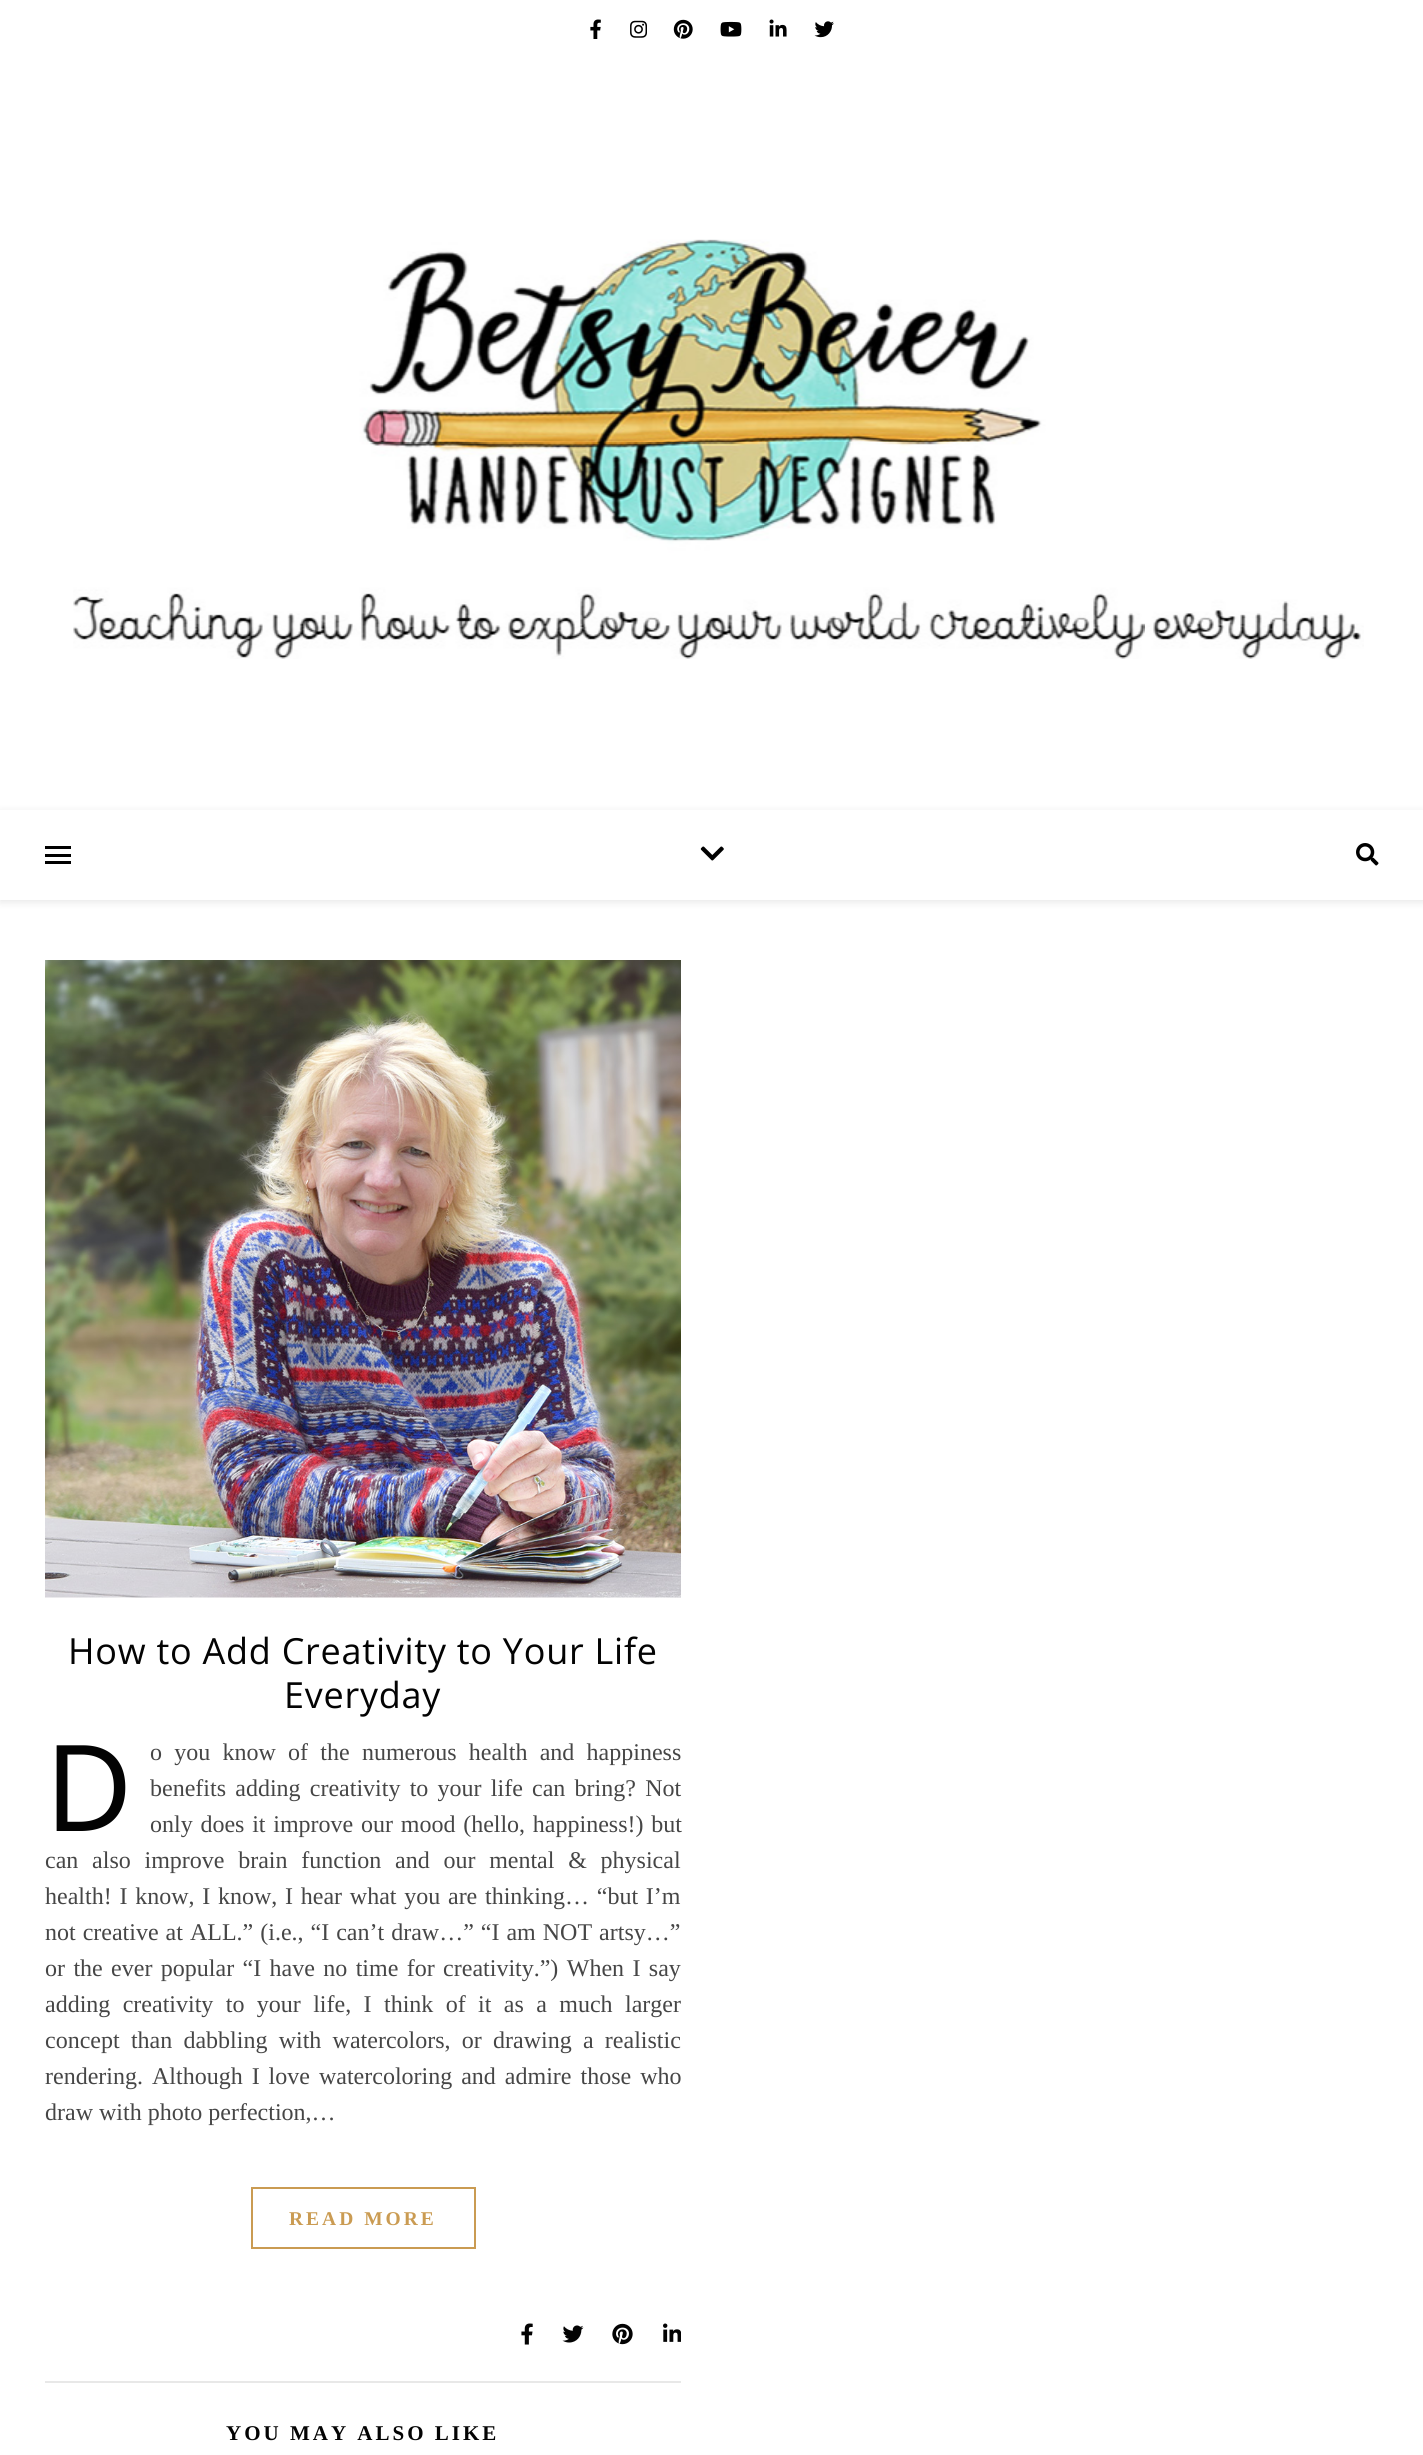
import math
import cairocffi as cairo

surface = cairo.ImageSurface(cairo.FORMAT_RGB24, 1423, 2455)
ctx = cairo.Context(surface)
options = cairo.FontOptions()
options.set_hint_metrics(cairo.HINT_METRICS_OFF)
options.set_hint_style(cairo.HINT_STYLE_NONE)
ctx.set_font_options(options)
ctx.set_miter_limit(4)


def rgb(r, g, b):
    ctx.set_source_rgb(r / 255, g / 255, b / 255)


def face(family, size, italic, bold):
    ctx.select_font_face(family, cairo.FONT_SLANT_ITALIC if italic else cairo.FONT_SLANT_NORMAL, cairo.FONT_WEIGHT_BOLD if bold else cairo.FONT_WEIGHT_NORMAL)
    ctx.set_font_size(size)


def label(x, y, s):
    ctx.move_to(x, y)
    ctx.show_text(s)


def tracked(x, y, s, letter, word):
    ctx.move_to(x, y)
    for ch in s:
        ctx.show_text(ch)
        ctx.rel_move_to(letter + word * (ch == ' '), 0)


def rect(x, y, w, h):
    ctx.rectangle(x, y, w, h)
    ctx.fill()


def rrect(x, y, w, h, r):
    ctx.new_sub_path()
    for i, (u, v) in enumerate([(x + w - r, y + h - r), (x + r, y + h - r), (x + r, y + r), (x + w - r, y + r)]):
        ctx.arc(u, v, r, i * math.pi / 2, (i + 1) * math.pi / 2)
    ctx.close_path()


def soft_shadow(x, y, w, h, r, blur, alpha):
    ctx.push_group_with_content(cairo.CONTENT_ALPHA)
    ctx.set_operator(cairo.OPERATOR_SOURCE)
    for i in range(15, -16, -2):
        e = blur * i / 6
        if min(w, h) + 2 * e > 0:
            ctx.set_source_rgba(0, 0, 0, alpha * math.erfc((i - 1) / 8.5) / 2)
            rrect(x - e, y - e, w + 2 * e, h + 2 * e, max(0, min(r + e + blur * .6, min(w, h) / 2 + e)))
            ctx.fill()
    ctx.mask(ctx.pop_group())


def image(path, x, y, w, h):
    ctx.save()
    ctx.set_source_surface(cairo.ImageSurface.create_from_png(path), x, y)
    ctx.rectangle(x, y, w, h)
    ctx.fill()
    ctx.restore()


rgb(255, 255, 255)
ctx.paint()
image('image0.png', 590, 19, 11, 20)
image('image1.png', 630, 20, 17, 18)
image('image2.png', 673, 19, 20, 20)
image('image3.png', 720, 21, 22, 16)
image('image4.png', 769, 19, 18, 18)
image('image5.png', 814, 21, 20, 17)
image('image6.png', 73, 239, 1291, 420)
ctx.save()
ctx.set_fill_rule(cairo.FILL_RULE_EVEN_ODD)
ctx.new_path()
ctx.move_to(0, 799)
ctx.line_to(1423, 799)
ctx.line_to(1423, 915)
ctx.line_to(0, 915)
ctx.close_path()
ctx.move_to(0, 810)
ctx.line_to(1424, 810)
ctx.line_to(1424, 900)
ctx.line_to(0, 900)
ctx.close_path()
ctx.clip()
rgb(0, 0, 0)
soft_shadow(0, 812, 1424, 90, 0, 4, 0.1)
ctx.restore()
rgb(0, 0, 0)
rect(45, 846, 26, 3)
rect(45, 854, 26, 3)
rect(45, 861, 26, 3)
image('image7.png', 700, 846, 24, 15)
image('image8.png', 1356, 843, 23, 23)
image('image9.png', 45, 960, 636, 638)
face('Open Sans', 36, 0, 0)
rgb(3, 3, 3)
tracked(68, 1664, 'How to Add Creativity to Your Life', 0.75, 0)
tracked(284, 1708, 'Everyday', 0.75, 0)
face('Noto Sans', 120, 0, 0)
label(45, 1831, 'D')
face('Liberation Serif', 24, 0, 0)
rgb(70, 70, 70)
tracked(150, 1760, 'o you know of the numerous health and happiness', 0, 6.25)
tracked(150, 1796, 'benefits adding creativity to your life can bring? Not', 0, 3.25)
tracked(150, 1832, 'only does it improve our mood (hello, happiness!) but', 0, 1.75)
tracked(45, 1868, 'can also improve brain function and our mental & physical', 0, 7.75)
tracked(45, 1904, 'health! I know, I know, I hear what you are thinking… “but I’m', 0, 1.75)
tracked(45, 1940, 'not creative at ALL.” (i.e., “I can’t draw…” “I am NOT artsy…”', 0, 1)
tracked(45, 1976, 'or the ever popular “I have no time for creativity.”) When I say', 0, 2.4)
tracked(45, 2012, 'adding creativity to your life, I think of it as a much larger', 0, 6.4)
tracked(45, 2048, 'concept than dabbling with watercolors, or drawing a realistic', 0, 5.25)
tracked(45, 2084, 'rendering. Although I love watercoloring and admire those who', 0, 3)
label(45, 2120, 'draw with photo perfection,…')
ctx.rectangle(252, 2188, 223, 60)
rgb(202, 155, 82)
ctx.stroke()
face('Liberation Serif', 19.5, 0, 1)
tracked(289, 2225, 'READ MORE', 3, 0)
rgb(232, 232, 232)
rect(45, 2381, 636, 2)
image('image10.png', 521, 2323, 12, 22)
image('image11.png', 562, 2325, 22, 18)
image('image12.png', 612, 2323, 21, 22)
image('image13.png', 663, 2323, 18, 19)
face('Liberation Serif', 21, 0, 1)
rgb(3, 3, 3)
tracked(226, 2440, 'YOU MAY ALSO LIKE', 3, 0)
surface.write_to_png('render.png')
